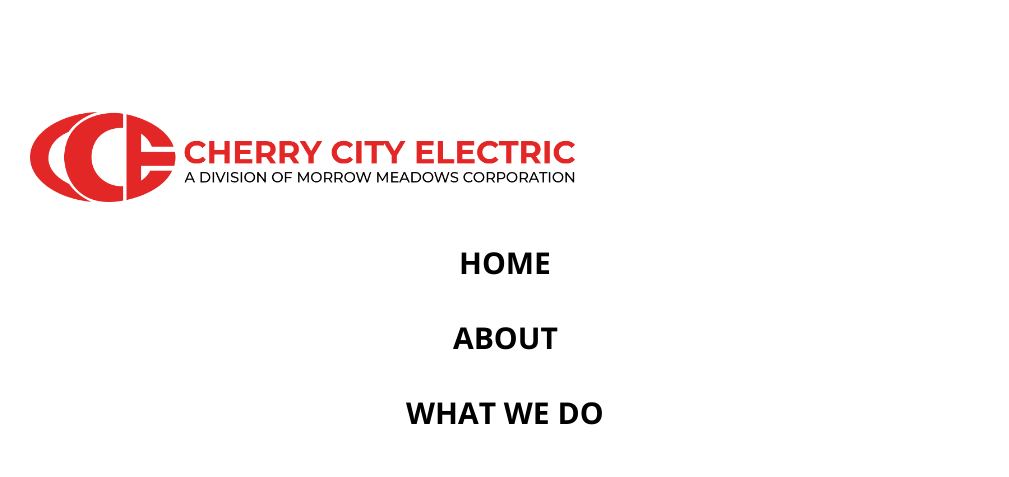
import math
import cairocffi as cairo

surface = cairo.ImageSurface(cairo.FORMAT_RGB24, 1009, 477)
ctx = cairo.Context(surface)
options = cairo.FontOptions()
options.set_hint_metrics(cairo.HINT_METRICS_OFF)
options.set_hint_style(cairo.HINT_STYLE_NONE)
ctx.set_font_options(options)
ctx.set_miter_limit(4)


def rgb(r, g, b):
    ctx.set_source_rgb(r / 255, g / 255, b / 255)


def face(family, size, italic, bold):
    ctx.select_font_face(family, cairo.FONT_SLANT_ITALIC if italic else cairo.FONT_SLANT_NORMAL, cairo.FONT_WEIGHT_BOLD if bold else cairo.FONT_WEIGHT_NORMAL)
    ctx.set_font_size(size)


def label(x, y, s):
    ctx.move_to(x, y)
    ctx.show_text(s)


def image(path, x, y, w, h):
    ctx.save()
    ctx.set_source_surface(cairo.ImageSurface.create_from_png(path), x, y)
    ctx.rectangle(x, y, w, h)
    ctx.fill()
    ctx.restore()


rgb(255, 255, 255)
ctx.paint()
image('image0.png', 30, 112, 545, 90)
face('Open Sans', 30, 0, 1)
rgb(0, 0, 0)
label(459, 274, 'HOME')
label(453, 349, 'ABOUT')
label(406, 424, 'WHAT WE DO')
surface.write_to_png('render.png')
